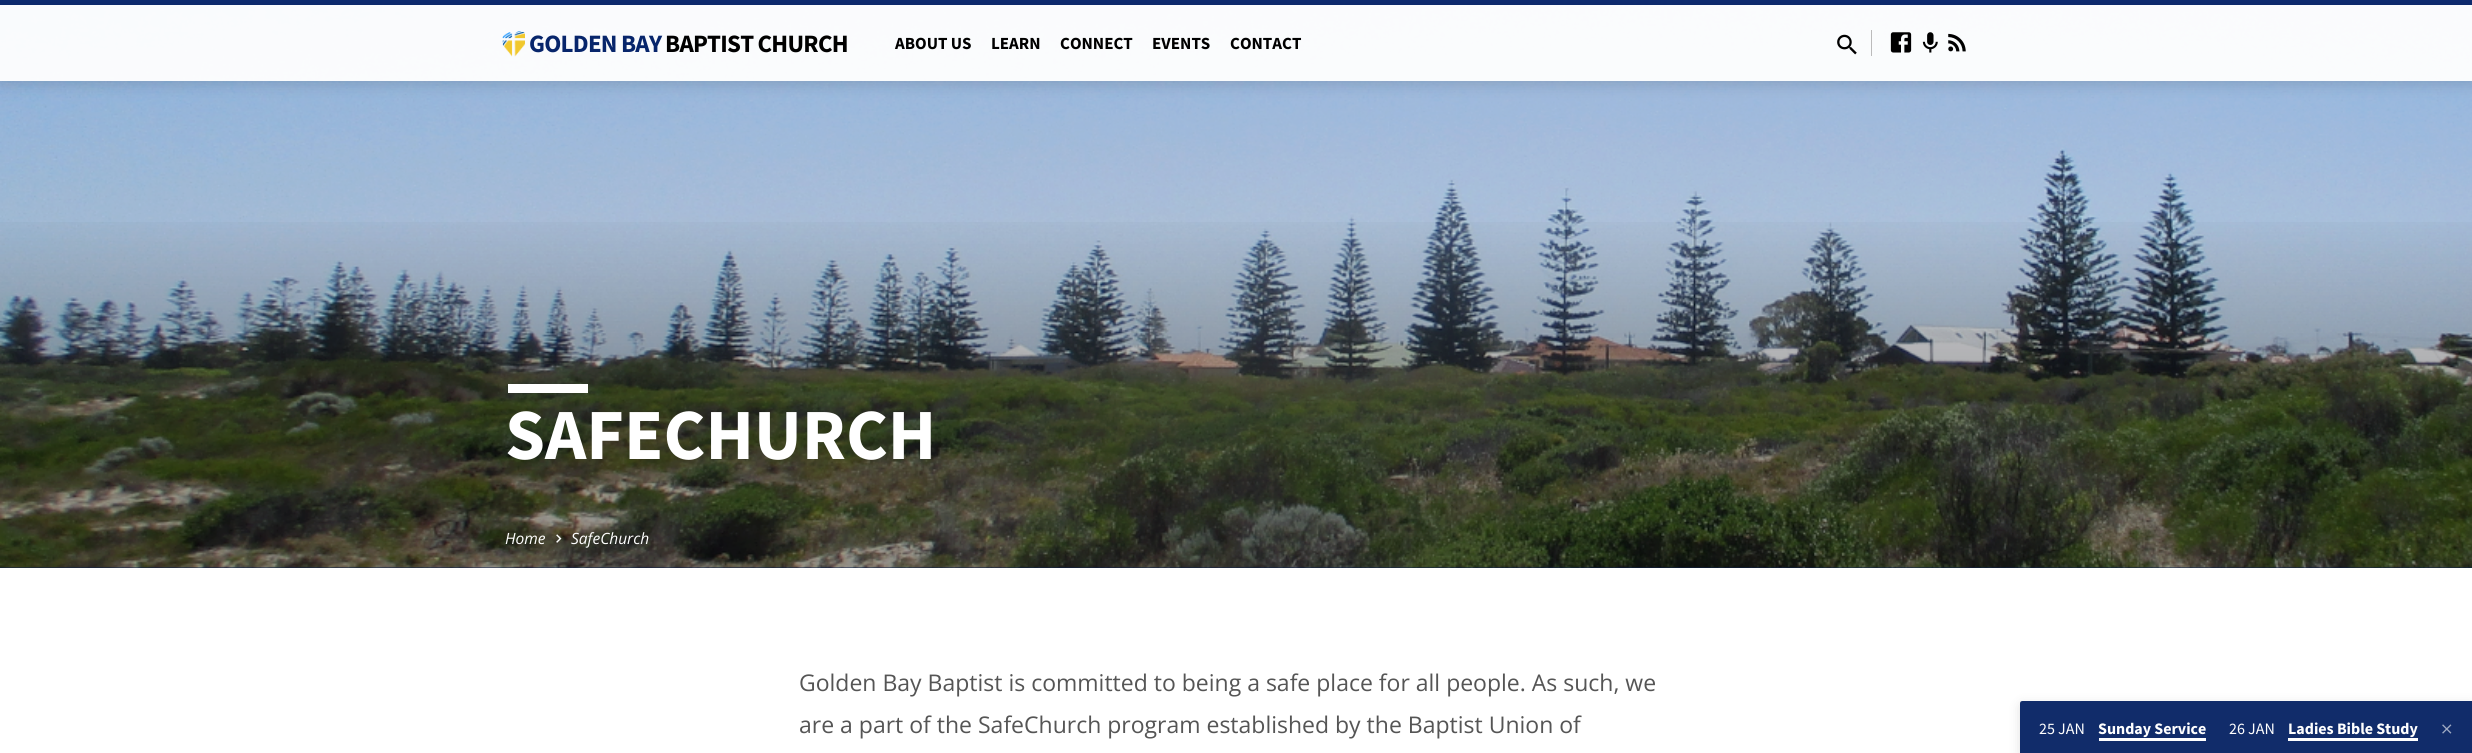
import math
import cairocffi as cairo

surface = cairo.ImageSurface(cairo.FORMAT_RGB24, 2472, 753)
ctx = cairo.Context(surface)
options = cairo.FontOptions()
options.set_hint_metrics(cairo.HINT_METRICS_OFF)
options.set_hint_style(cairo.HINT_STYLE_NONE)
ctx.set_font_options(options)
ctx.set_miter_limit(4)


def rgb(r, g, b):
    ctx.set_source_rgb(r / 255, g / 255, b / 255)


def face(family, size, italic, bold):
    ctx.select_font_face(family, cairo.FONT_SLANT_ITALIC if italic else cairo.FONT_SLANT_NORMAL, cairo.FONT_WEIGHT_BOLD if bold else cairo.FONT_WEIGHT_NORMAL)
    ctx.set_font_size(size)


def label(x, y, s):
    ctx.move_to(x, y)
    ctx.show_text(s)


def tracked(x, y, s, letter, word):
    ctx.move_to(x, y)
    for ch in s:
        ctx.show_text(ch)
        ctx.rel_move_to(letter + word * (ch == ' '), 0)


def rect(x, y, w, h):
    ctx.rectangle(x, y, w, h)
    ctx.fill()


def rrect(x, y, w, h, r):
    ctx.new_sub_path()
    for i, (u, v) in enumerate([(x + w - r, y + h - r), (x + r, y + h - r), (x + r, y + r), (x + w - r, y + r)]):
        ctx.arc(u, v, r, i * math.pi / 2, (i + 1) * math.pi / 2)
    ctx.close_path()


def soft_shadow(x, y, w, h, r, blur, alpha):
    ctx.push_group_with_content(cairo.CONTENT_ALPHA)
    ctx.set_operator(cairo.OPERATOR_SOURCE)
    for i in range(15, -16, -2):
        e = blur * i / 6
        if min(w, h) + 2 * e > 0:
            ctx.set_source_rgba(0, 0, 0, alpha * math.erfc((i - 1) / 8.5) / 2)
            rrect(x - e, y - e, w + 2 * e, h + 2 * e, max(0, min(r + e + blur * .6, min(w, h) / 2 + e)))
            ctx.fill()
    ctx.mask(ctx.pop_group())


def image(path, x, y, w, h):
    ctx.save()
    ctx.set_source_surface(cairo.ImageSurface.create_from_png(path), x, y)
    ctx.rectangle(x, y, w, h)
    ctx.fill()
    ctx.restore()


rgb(255, 255, 255)
ctx.paint()
rgb(17, 43, 103)
rect(0, 0, 2472, 568)
image('image5.png', 0, 0, 2472, 568)
ctx.set_source_rgba(0.027, 0.145, 0.42, 0.95)
rect(0, 0, 2472, 5)
ctx.save()
ctx.set_fill_rule(cairo.FILL_RULE_EVEN_ODD)
ctx.new_path()
ctx.move_to(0, 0)
ctx.line_to(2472, 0)
ctx.line_to(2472, 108)
ctx.line_to(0, 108)
ctx.close_path()
ctx.move_to(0, 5)
ctx.line_to(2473, 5)
ctx.line_to(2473, 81)
ctx.line_to(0, 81)
ctx.close_path()
ctx.clip()
rgb(0, 0, 0)
soft_shadow(0, 8, 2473, 76, 0, 7.5, 0.14)
ctx.restore()
ctx.set_source_rgba(1, 1, 1, 0.95)
rect(0, 5, 2472, 76)
image('image0.png', 502, 31, 23, 26)
face('Source Sans Pro', 25, 0, 1)
rgb(7, 37, 107)
tracked(529, 52, 'GOLDEN BAY', -0.75, 0)
rgb(0, 0, 0)
tracked(665, 52, 'BAPTIST CHURCH', -0.75, 0)
face('Source Sans Pro', 17, 0, 1)
label(895, 49, 'ABOUT US')
label(991, 49, 'LEARN')
label(1060, 49, 'CONNECT')
label(1152, 49, 'EVENTS')
label(1230, 49, 'CONTACT')
image('image1.png', 1837, 34, 20, 21)
rgb(187, 187, 187)
rect(1871, 30, 1, 26)
image('image2.png', 1890, 32, 22, 21)
image('image3.png', 1922, 32, 16, 21)
image('image4.png', 1948, 33, 18, 19)
gradient = cairo.LinearGradient(1236, 0, 1236, 568)
gradient.add_color_stop_rgba(0, 0, 0, 0, 0)
gradient.add_color_stop_rgba(0.36, 0, 0, 0, 0)
gradient.add_color_stop_rgba(0.76, 0, 0, 0, 0.28)
gradient.add_color_stop_rgba(1, 0, 0, 0, 0.28)
ctx.set_source(gradient)
rect(0, 222, 2472, 346)
rgb(255, 255, 255)
rect(508, 384, 80, 9)
face('Source Sans Pro', 72, 0, 1)
label(505, 459, 'SAFECHURCH')
face('Open Sans', 15.5, 1, 0)
label(505, 544, 'Home')
image('image6.png', 556, 534, 6, 9)
label(571, 544, 'SafeChurch')
face('Open Sans', 23, 0, 0)
rgb(85, 85, 85)
label(799, 691, 'Golden Bay Baptist is committed to being a safe place for all people. As such, we')
label(799, 733, 'are a part of the SafeChurch program established by the Baptist Union of')
ctx.save()
ctx.set_fill_rule(cairo.FILL_RULE_EVEN_ODD)
ctx.new_path()
ctx.move_to(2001, 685)
ctx.line_to(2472, 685)
ctx.line_to(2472, 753)
ctx.line_to(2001, 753)
ctx.close_path()
ctx.move_to(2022.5, 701)
ctx.line_to(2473, 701)
ctx.line_to(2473, 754)
ctx.line_to(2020, 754)
ctx.line_to(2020, 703.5)
ctx.curve_to(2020, 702, 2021, 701, 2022.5, 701)
ctx.close_path()
ctx.clip()
rgb(0, 0, 0)
soft_shadow(2020, 704, 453, 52, 2.5, 6, 0.12)
ctx.restore()
ctx.set_source_rgba(0.027, 0.145, 0.42, 0.95)
ctx.new_path()
ctx.move_to(2022.5, 701)
ctx.line_to(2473, 701)
ctx.line_to(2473, 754)
ctx.line_to(2020, 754)
ctx.line_to(2020, 703.5)
ctx.curve_to(2020, 702, 2021, 701, 2022.5, 701)
ctx.close_path()
ctx.fill()
ctx.set_source_rgba(0, 0, 0, 0.07)
rect(2020, 701, 452, 52)
face('Source Sans Pro', 16, 0, 0)
rgb(255, 255, 255)
label(2039, 734, '25 JAN')
face('Source Sans Pro', 16, 0, 1)
label(2098, 734, 'Sunday Service')
rect(2099, 738, 107, 3)
face('Source Sans Pro', 16, 0, 0)
label(2229, 734, '26 JAN')
face('Source Sans Pro', 16, 0, 1)
label(2288, 734, 'Ladies Bible Study')
rect(2288, 738, 130, 3)
image('image7.png', 2442, 724, 10, 10)
surface.write_to_png('render.png')
